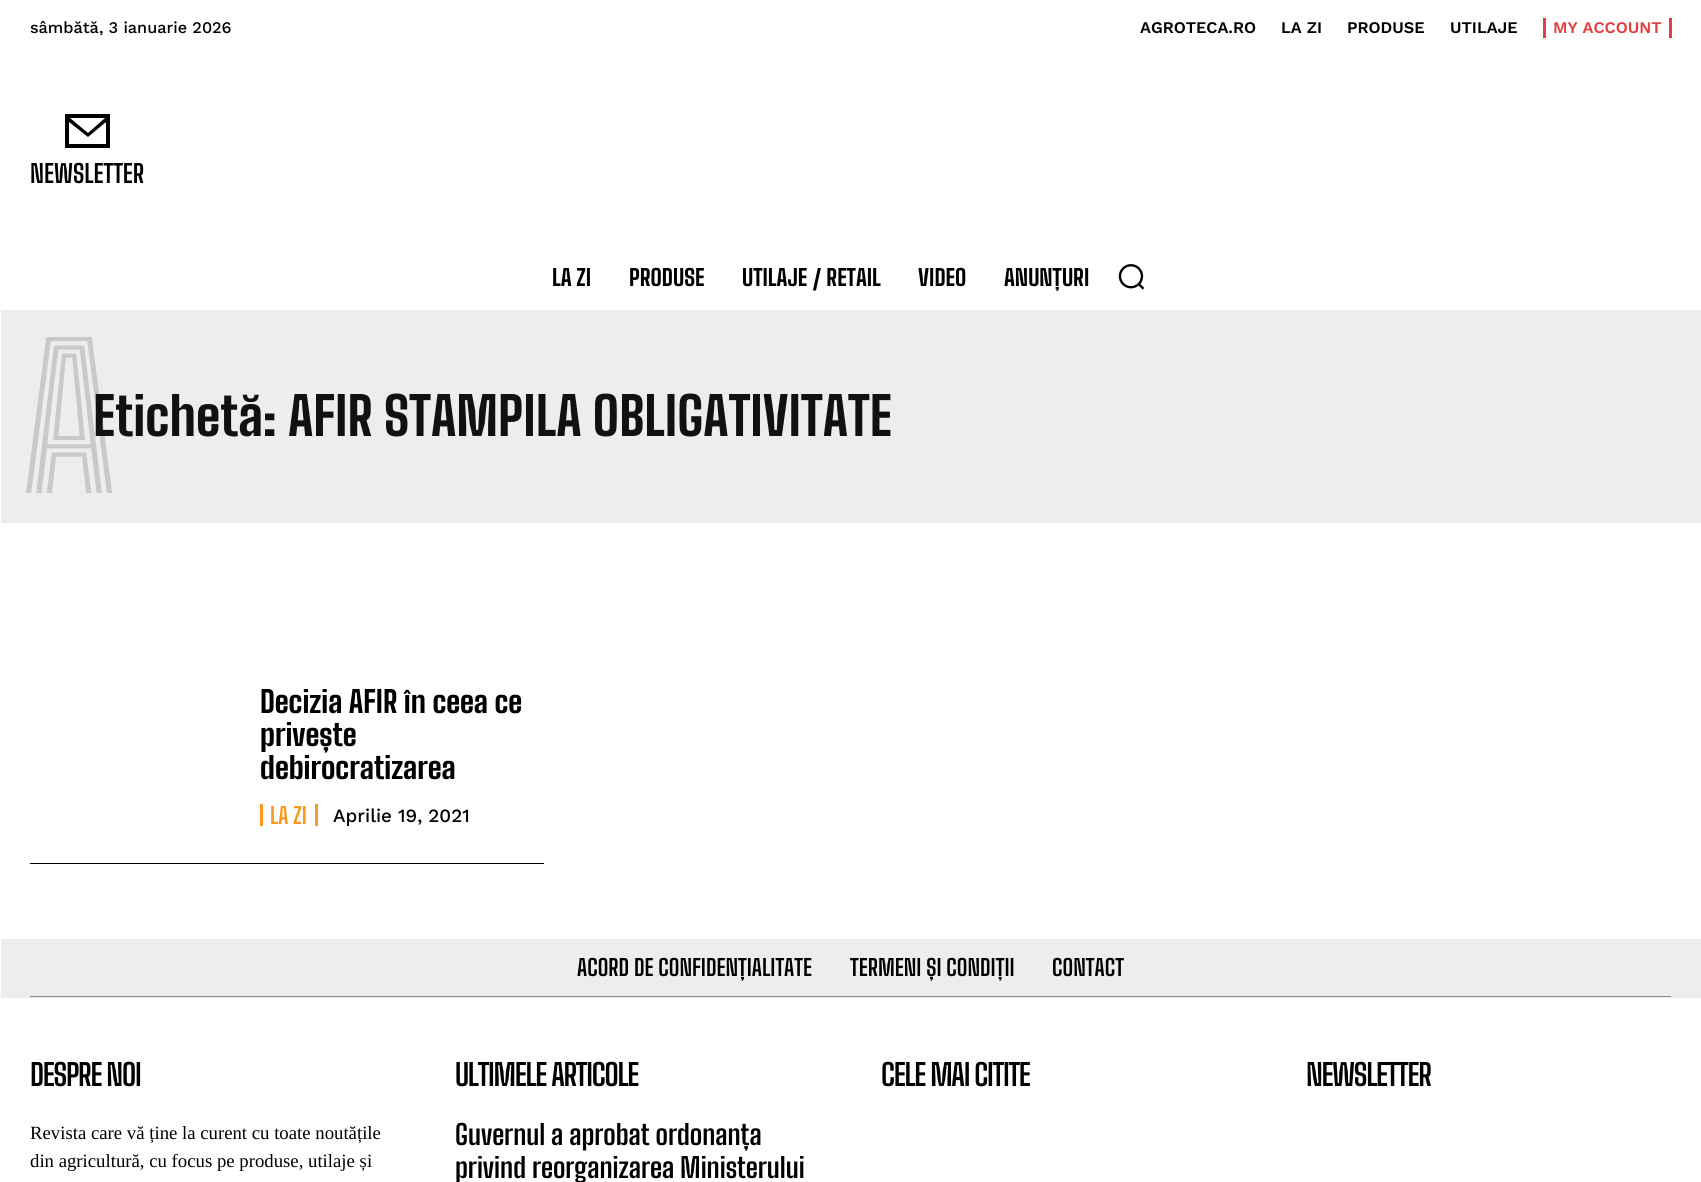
import math
import cairocffi as cairo

surface = cairo.ImageSurface(cairo.FORMAT_RGB24, 1701, 1182)
ctx = cairo.Context(surface)
options = cairo.FontOptions()
options.set_hint_metrics(cairo.HINT_METRICS_OFF)
options.set_hint_style(cairo.HINT_STYLE_NONE)
ctx.set_font_options(options)
ctx.set_miter_limit(4)


def rgb(r, g, b):
    ctx.set_source_rgb(r / 255, g / 255, b / 255)


def face(family, size, italic, bold):
    ctx.select_font_face(family, cairo.FONT_SLANT_ITALIC if italic else cairo.FONT_SLANT_NORMAL, cairo.FONT_WEIGHT_BOLD if bold else cairo.FONT_WEIGHT_NORMAL)
    ctx.set_font_size(size)


def label(x, y, s):
    ctx.move_to(x, y)
    ctx.show_text(s)


def tracked(x, y, s, letter, word):
    ctx.move_to(x, y)
    for ch in s:
        ctx.show_text(ch)
        ctx.rel_move_to(letter + word * (ch == ' '), 0)


def rect(x, y, w, h):
    ctx.rectangle(x, y, w, h)
    ctx.fill()


def image(path, x, y, w, h):
    ctx.save()
    ctx.set_source_surface(cairo.ImageSurface.create_from_png(path), x, y)
    ctx.rectangle(x, y, w, h)
    ctx.fill()
    ctx.restore()


rgb(255, 255, 255)
ctx.paint()
face('Work Sans Medium', 16.25, 0, 0)
rgb(0, 0, 0)
label(30, 33, 'sâmbătă, 3 ianuarie 2026')
face('Work Sans SemiBold', 16.25, 0, 0)
label(1140, 33, 'AGROTECA.RO')
label(1281, 33, 'LA ZI')
label(1347, 33, 'PRODUSE')
label(1450, 33, 'UTILAJE')
rgb(224, 64, 64)
rect(1669, 18, 3, 20)
rect(1543, 18, 3, 20)
label(1553, 33, 'MY ACCOUNT')
rgb(0, 0, 0)
ctx.new_path()
ctx.move_to(65, 114)
ctx.line_to(65, 148)
ctx.line_to(110, 148)
ctx.line_to(110, 114)
ctx.close_path()
ctx.move_to(105, 118)
ctx.line_to(88, 133)
ctx.line_to(70, 118)
ctx.close_path()
ctx.move_to(69, 144)
ctx.line_to(69, 122)
ctx.line_to(88, 137)
ctx.line_to(106, 122)
ctx.line_to(106, 144)
ctx.close_path()
ctx.fill()
face('Big Shoulders Text', 25, 0, 1)
label(30, 183, 'NEWSLETTER')
face('Big Shoulders Text ExtraBold', 22.5, 0, 0)
label(552, 286, 'LA ZI')
label(629, 286, 'PRODUSE')
label(742, 286, 'UTILAJE / RETAIL')
label(918, 286, 'VIDEO')
label(1004, 286, 'ANUNȚURI')
image('image0.png', 1118, 264, 27, 26)
rgb(237, 237, 237)
rect(1, 310, 1700, 213)
face('Big Shoulders Inline Text ExtraBold', 195, 0, 0)
rgb(201, 201, 201)
label(22, 493, 'A')
face('Big Shoulders Text ExtraBold', 52.5, 0, 0)
rgb(17, 17, 17)
label(93, 436, 'Etichetă: AFIR STAMPILA OBLIGATIVITATE')
rgb(0, 0, 0)
rect(30, 863, 514, 1)
face('Big Shoulders Text ExtraBold', 30, 0, 0)
label(260, 713, 'Decizia AFIR în ceea ce')
label(260, 746, 'privește')
label(260, 779, 'debirocratizarea')
rgb(248, 152, 29)
rect(315, 804, 3, 22)
rect(260, 804, 3, 22)
face('Big Shoulders Text', 22.5, 0, 1)
label(270, 824, 'LA ZI')
face('Work Sans Medium', 18.75, 0, 0)
rgb(0, 0, 0)
label(333, 822, 'Aprilie 19, 2021')
rgb(237, 237, 237)
rect(1, 939, 1700, 59)
rgb(136, 136, 136)
rect(30, 996, 1641, 1)
face('Big Shoulders Text', 22.5, 0, 1)
rgb(0, 0, 0)
label(577, 976, 'ACORD DE CONFIDENȚIALITATE')
label(850, 976, 'TERMENI ȘI CONDIȚII')
label(1052, 976, 'CONTACT')
face('Big Shoulders Text', 30, 0, 1)
tracked(30, 1086, 'DESPRE NOI', -1.25, 0)
face('Liberation Serif', 18.75, 0, 0)
label(30, 1139, 'Revista care vă ține la curent cu toate noutățile')
label(30, 1167, 'din agricultură, cu focus pe produse, utilaje și')
face('Big Shoulders Text', 30, 0, 1)
tracked(455, 1086, 'ULTIMELE ARTICOLE', -1.25, 0)
face('Big Shoulders Text', 27.5, 0, 1)
label(455, 1145, 'Guvernul a aprobat ordonanța')
label(455, 1178, 'privind reorganizarea Ministerului')
face('Big Shoulders Text', 30, 0, 1)
tracked(881, 1086, 'CELE MAI CITITE', -1.25, 0)
tracked(1306, 1086, 'NEWSLETTER', -1.25, 0)
surface.write_to_png('render.png')
